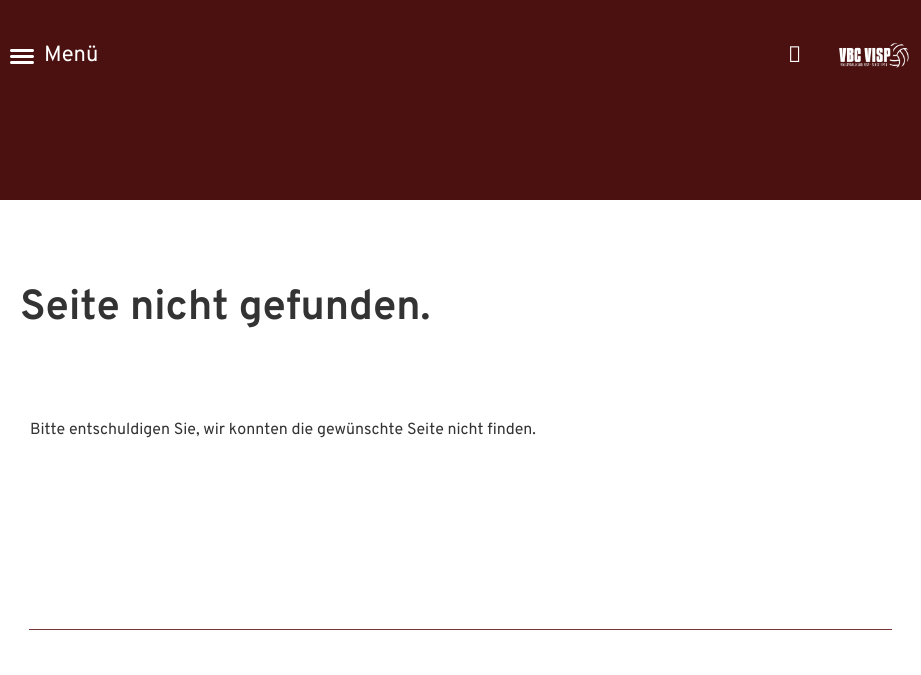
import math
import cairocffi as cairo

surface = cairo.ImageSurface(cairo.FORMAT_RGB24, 921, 675)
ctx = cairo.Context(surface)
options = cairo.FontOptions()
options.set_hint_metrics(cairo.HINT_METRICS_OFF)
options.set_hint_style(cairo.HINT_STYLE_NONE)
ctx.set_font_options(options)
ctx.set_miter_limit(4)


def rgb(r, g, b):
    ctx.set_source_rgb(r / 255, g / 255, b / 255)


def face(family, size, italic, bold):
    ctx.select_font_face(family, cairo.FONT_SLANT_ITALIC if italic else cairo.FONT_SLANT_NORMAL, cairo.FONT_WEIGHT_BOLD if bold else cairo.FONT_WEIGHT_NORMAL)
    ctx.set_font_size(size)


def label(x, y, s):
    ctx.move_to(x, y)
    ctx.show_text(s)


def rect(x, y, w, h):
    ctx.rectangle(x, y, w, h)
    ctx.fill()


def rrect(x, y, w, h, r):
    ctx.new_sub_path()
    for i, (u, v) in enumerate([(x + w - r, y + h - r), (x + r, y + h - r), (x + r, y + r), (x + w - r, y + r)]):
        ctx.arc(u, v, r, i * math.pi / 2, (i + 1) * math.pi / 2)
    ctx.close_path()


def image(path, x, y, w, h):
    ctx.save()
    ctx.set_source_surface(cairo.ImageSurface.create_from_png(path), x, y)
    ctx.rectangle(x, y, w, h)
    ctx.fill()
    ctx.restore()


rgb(255, 255, 255)
ctx.paint()
rgb(75, 17, 17)
rect(0, 0, 921, 200)
rgb(255, 255, 255)
rrect(10, 49, 24, 3, 1.5)
ctx.fill()
rrect(10, 55, 24, 3, 1.5)
ctx.fill()
rrect(10, 61, 24, 3, 1.5)
ctx.fill()
face('Overpass', 22, 0, 0)
label(44, 61, 'Menü')
image('image0.png', 790, 46, 10, 16)
image('image1.png', 839, 43, 70, 25)
face('Overpass', 42, 0, 1)
rgb(51, 51, 51)
label(20, 319, 'Seite nicht gefunden.')
face('Overpass', 16, 0, 0)
label(30, 434, 'Bitte entschuldigen Sie, wir konnten die gewünschte Seite nicht finden.')
rgb(122, 53, 53)
rect(29, 629, 863, 1)
surface.write_to_png('render.png')
